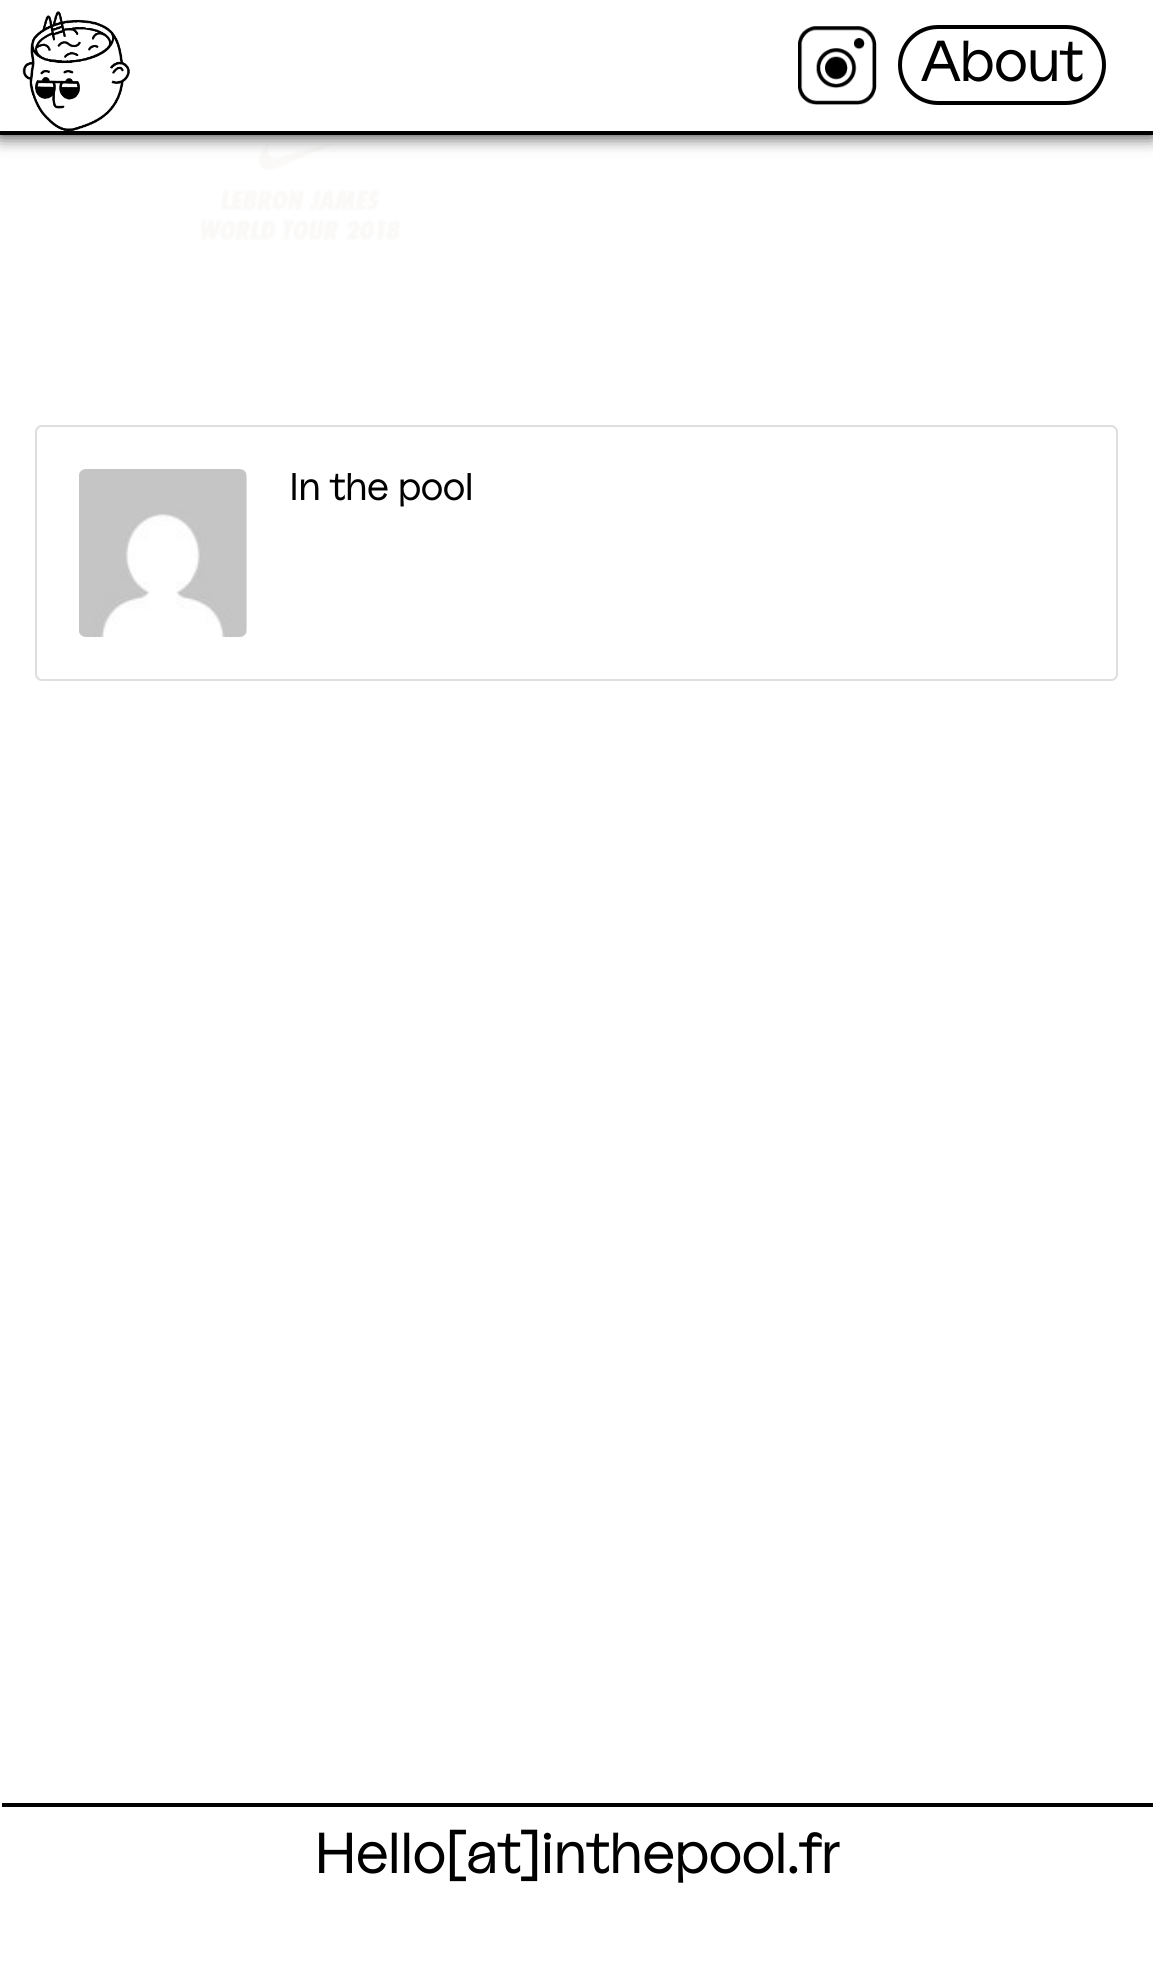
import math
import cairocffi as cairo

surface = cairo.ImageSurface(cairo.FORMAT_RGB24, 1153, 1965)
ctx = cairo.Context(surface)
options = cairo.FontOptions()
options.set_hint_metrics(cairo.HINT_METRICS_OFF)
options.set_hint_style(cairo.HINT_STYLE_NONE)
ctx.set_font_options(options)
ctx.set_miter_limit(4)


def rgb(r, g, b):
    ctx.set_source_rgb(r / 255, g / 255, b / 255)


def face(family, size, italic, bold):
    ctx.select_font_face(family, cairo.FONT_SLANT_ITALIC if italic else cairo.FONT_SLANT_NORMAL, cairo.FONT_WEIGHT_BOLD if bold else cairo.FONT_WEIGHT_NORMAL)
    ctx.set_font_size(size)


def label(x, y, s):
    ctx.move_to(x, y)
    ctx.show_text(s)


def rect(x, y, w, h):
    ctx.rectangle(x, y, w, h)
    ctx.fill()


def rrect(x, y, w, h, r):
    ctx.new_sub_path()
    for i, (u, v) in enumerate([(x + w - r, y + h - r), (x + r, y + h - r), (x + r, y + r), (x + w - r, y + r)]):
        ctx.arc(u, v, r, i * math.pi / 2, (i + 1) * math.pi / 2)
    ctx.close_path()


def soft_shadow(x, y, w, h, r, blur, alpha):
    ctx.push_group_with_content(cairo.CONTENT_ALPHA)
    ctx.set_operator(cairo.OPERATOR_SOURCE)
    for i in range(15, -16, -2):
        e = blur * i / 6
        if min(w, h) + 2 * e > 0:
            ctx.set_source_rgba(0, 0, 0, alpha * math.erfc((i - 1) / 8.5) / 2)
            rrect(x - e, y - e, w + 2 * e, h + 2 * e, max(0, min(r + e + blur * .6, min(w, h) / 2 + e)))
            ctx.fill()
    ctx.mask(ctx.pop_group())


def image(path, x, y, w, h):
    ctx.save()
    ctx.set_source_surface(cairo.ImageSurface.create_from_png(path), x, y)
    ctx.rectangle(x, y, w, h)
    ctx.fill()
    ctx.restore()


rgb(255, 255, 255)
ctx.paint()
image('image2.png', 201, 144, 199, 96)
rgb(0, 0, 0)
soft_shadow(0, 0, 1153, 135, 0, 9, 0.5)
soft_shadow(0, 0, 1153, 135, 0, 9, 0.5)
rgb(255, 255, 255)
rect(0, 0, 1153, 131)
rgb(0, 0, 0)
rect(0, 131, 1153, 4)
image('image0.png', 22, 11, 108, 121)
image('image1.png', 798, 26, 79, 79)
rrect(900, 27, 204, 76, 38)
ctx.set_line_width(4)
ctx.stroke()
face('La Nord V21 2', 55.4, 0, 1)
label(921, 81, 'About')
rrect(36, 426, 1081, 254, 6)
rgb(222, 222, 222)
ctx.set_line_width(2)
ctx.stroke()
image('image3.png', 79, 469, 168, 168)
face('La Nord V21', 37, 0, 1)
rgb(0, 0, 0)
label(289, 500, 'In the pool')
rect(2, 1803, 1151, 4)
face('La Nord V21 2', 55.4, 0, 1)
label(314, 1873, 'Hello[at]inthepool.fr')
surface.write_to_png('render.png')
